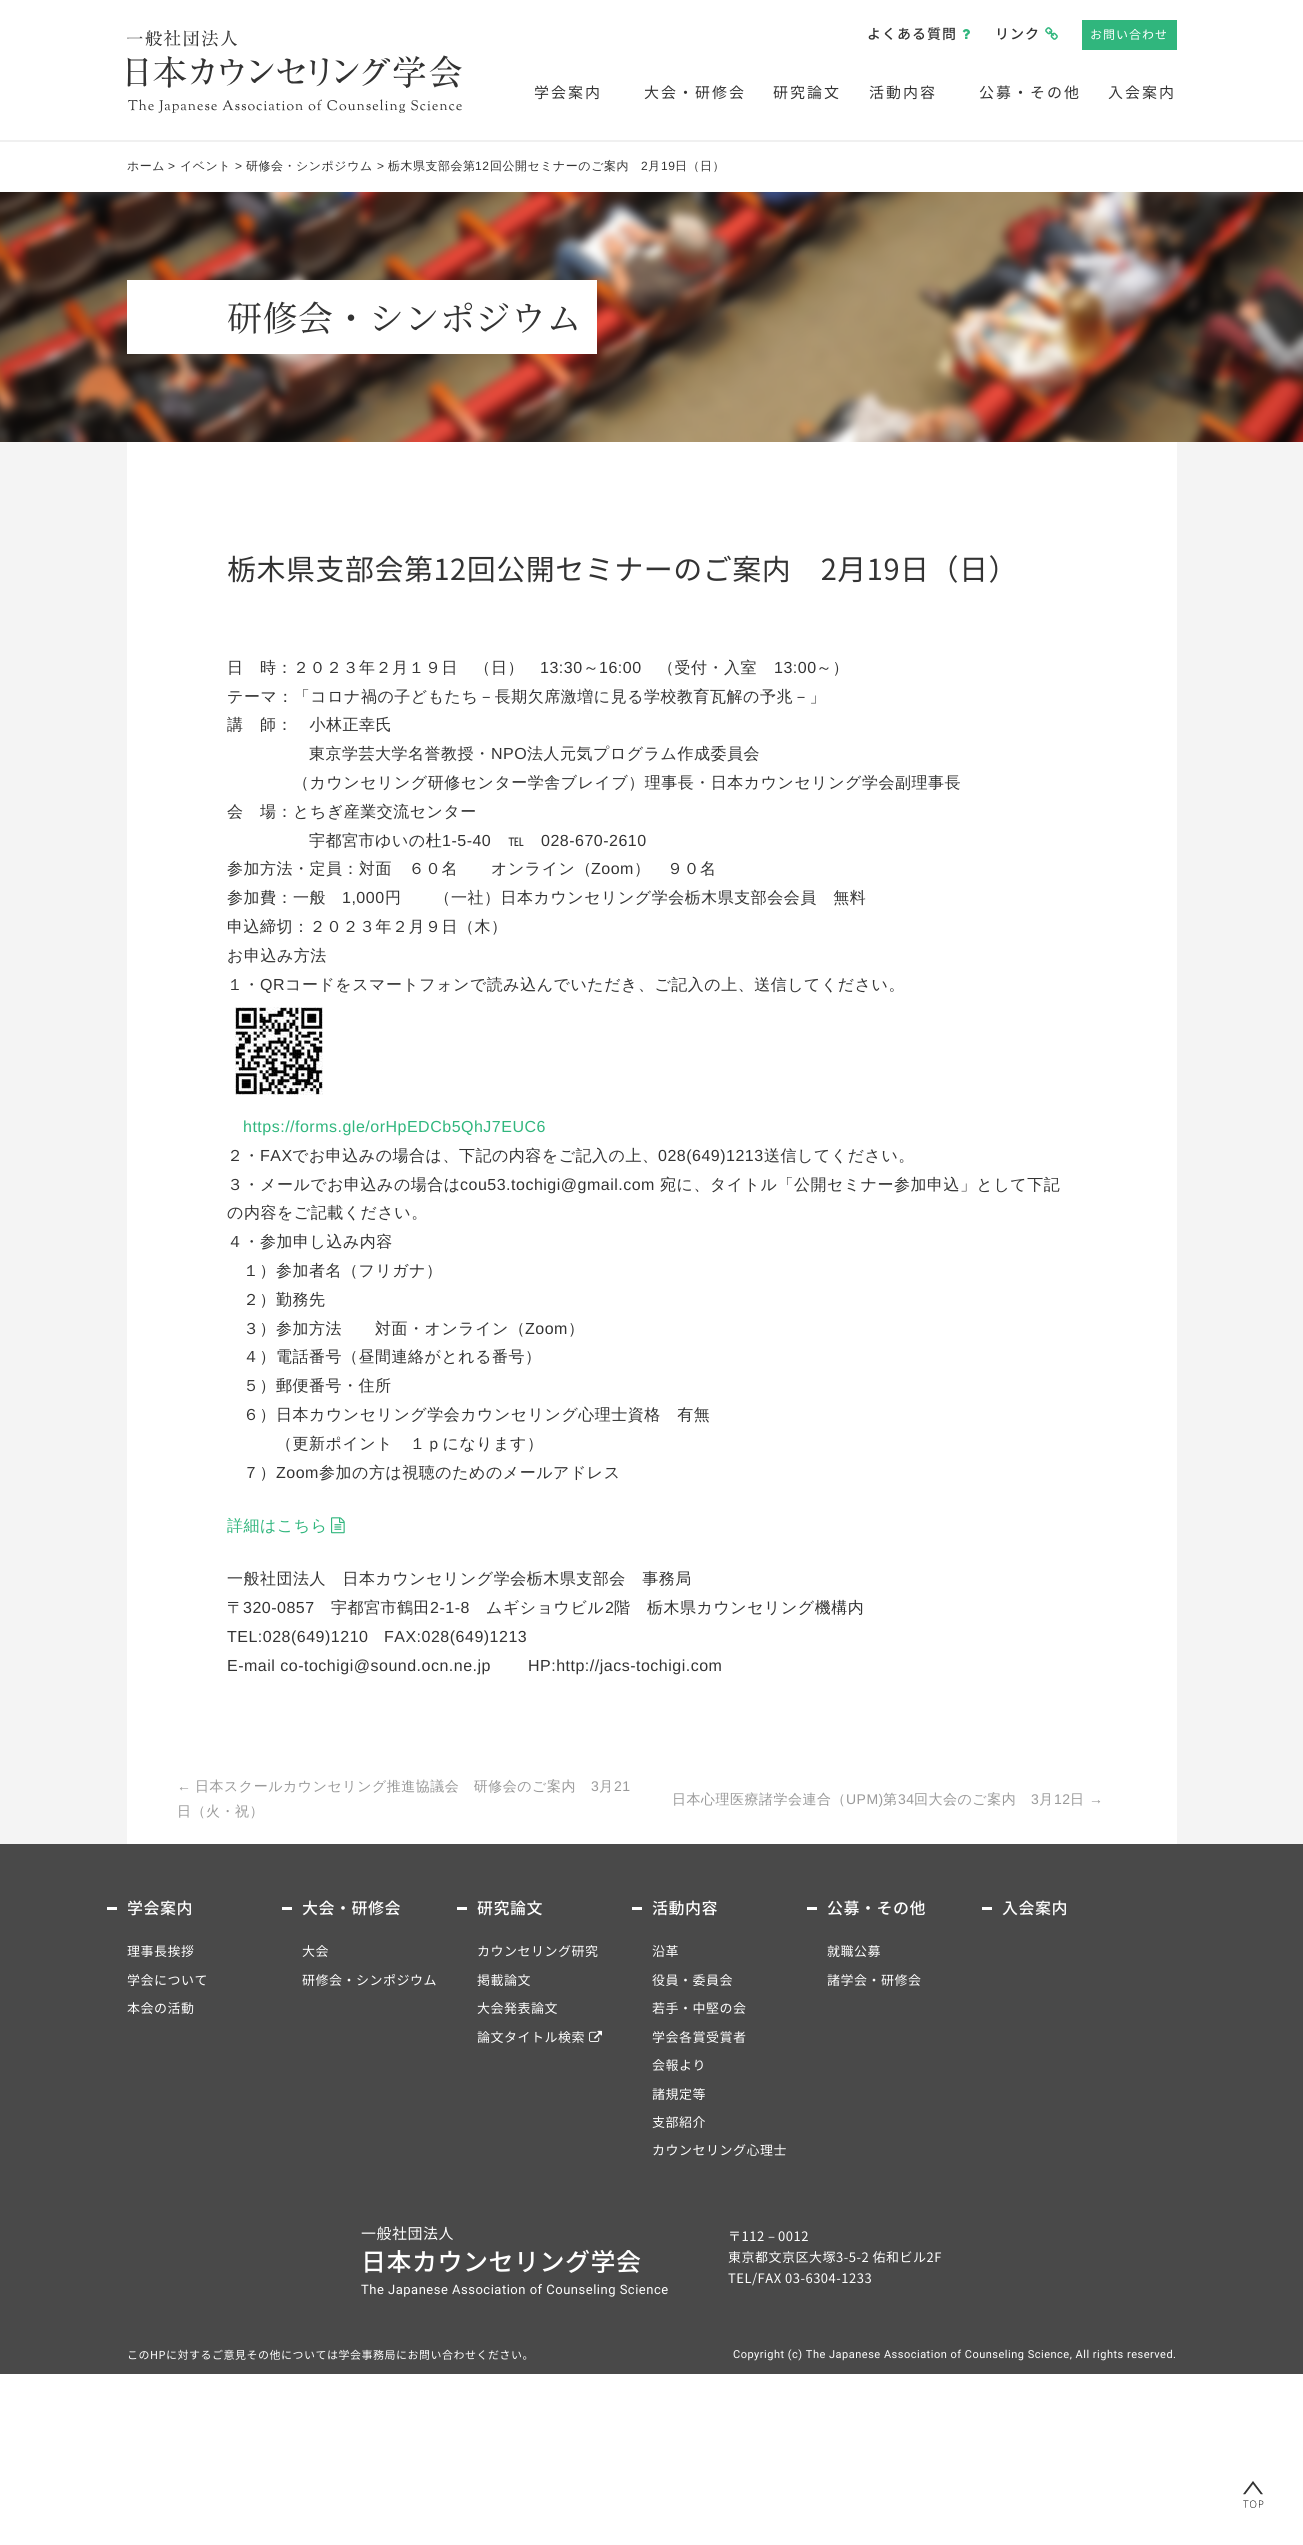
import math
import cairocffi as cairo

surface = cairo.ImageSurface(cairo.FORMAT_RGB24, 1303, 2545)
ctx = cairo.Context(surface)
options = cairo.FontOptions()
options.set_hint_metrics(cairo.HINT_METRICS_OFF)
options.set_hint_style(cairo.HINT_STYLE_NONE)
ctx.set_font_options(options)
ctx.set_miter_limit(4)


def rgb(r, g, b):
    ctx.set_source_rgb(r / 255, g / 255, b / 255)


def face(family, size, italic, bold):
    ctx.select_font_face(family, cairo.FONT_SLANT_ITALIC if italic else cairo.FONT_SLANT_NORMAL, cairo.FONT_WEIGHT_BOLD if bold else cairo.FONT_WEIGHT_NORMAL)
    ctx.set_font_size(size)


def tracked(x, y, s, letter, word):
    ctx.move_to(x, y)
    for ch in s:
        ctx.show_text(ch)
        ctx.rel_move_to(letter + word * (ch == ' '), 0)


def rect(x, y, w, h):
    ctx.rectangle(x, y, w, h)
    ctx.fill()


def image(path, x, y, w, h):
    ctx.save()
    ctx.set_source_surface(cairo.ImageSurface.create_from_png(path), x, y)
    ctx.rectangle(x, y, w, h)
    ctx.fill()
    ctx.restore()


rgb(255, 255, 255)
ctx.paint()
image('image0.png', 127, 30, 335, 83)
face('Noto Sans JP Medium', 14, 0, 0)
rgb(51, 51, 51)
tracked(867, 39, 'よくある質問', 1, 0)
image('image1.png', 962, 29, 8, 10)
tracked(995, 39, 'リンク', 1, 0)
image('image2.png', 1045, 27, 13, 13)
rgb(48, 182, 125)
rect(1082, 20, 95, 30)
face('Noto Sans JP', 12, 0, 0)
rgb(255, 255, 255)
tracked(1090, 39, 'お問い合わせ', 1, 0)
face('Noto Sans JP', 15, 0, 0)
rgb(51, 51, 51)
tracked(534, 98, '学会案内', 2, 0)
tracked(644, 98, '大会・研修会', 2, 0)
tracked(773, 98, '研究論文', 2, 0)
tracked(869, 98, '活動内容', 2, 0)
tracked(979, 98, '公募・その他', 2, 0)
tracked(1108, 98, '入会案内', 2, 0)
rgb(240, 240, 240)
rect(0, 140, 1303, 2)
face('WenQuanYi Zen Hei Medium', 12, 0, 0)
rgb(51, 51, 51)
tracked(127, 170, 'ホーム', 0.5, 0)
face('Liberation Sans', 12, 0, 0)
tracked(168, 170, '>', 0.5, 0)
face('WenQuanYi Zen Hei Medium', 12, 0, 0)
tracked(180, 170, 'イベント', 0.5, 0)
face('Liberation Sans', 12, 0, 0)
tracked(235, 170, '>', 0.5, 0)
face('WenQuanYi Zen Hei Medium', 12, 0, 0)
tracked(246, 170, '研修会・シンポジウム', 0.5, 0)
face('Liberation Sans', 12, 0, 0)
tracked(377, 170, '>', 0.5, 0)
face('WenQuanYi Zen Hei Medium', 12, 0, 0)
tracked(388, 170, '栃木県支部会第', 0.5, 0)
face('Liberation Sans', 12, 0, 0)
tracked(475, 170, '12', 0.5, 0)
face('WenQuanYi Zen Hei Medium', 12, 0, 0)
tracked(490, 170, '回公開セミナーのご案内', 0.5, 0)
face('Liberation Sans', 12, 0, 0)
tracked(641, 170, '2', 0.5, 0)
face('WenQuanYi Zen Hei Medium', 12, 0, 0)
tracked(648, 170, '月', 0.5, 0)
face('Liberation Sans', 12, 0, 0)
tracked(661, 170, '19', 0.5, 0)
face('WenQuanYi Zen Hei Medium', 12, 0, 0)
tracked(675, 170, '日（日）', 0.5, 0)
image('image3.png', 0, 192, 1303, 250)
rgb(255, 255, 255)
rect(127, 280, 470, 74)
face('Noto Serif JP', 35, 0, 0)
rgb(51, 51, 51)
tracked(227, 331, '研修会・シンポジウム', 0.5, 0)
rgb(244, 244, 244)
rect(0, 442, 1303, 1402)
rgb(255, 255, 255)
rect(127, 442, 1050, 1402)
face('Noto Sans JP', 29, 0, 0)
rgb(51, 51, 51)
tracked(227, 580, '栃木県支部会第12回公開セミナーのご案内　2月19日（日）', 0.5, 0)
face('WenQuanYi Zen Hei Medium', 16, 0, 0)
tracked(227, 673, '日　時：２０２３年２月１９日　（日）', 0.5, 0)
face('Liberation Sans', 16, 0, 0)
tracked(540, 673, '13:30', 0.5, 0)
face('WenQuanYi Zen Hei Medium', 16, 0, 0)
tracked(583, 673, '～', 0.5, 0)
face('Liberation Sans', 16, 0, 0)
tracked(599, 673, '16:00', 0.5, 0)
face('WenQuanYi Zen Hei Medium', 16, 0, 0)
tracked(658, 673, '（受付・入室', 0.5, 0)
face('Liberation Sans', 16, 0, 0)
tracked(774, 673, '13:00', 0.5, 0)
face('WenQuanYi Zen Hei Medium', 16, 0, 0)
tracked(816, 673, '～）', 0.5, 0)
tracked(227, 702, 'テーマ：「コロナ禍の子どもたち－長期欠席激増に見る学校教育瓦解の予兆－」', 0.5, 0)
tracked(227, 730, '講　師：　小林正幸氏', 0.5, 0)
tracked(309, 759, '東京学芸大学名誉教授・', 0.5, 0)
face('Liberation Sans', 16, 0, 0)
tracked(491, 759, 'NPO', 0.5, 0)
face('WenQuanYi Zen Hei Medium', 16, 0, 0)
tracked(527, 759, '法人元気プログラム作成委員会', 0.5, 0)
tracked(293, 788, '（カウンセリング研修センター学舎ブレイブ）理事長・日本カウンセリング学会副理事長', 0.5, 0)
tracked(227, 817, '会　場：とちぎ産業交流センター', 0.5, 0)
tracked(309, 846, '宇都宮市ゆいの杜', 0.5, 0)
face('Liberation Sans', 16, 0, 0)
tracked(442, 846, '1-5-40', 0.5, 0)
face('WenQuanYi Zen Hei Medium', 16, 0, 0)
tracked(508, 846, '℡', 0.5, 0)
face('Liberation Sans', 16, 0, 0)
tracked(541, 846, '028-670-2610', 0.5, 0)
face('WenQuanYi Zen Hei Medium', 16, 0, 0)
tracked(227, 874, '参加方法・定員：対面　６０名　　オンライン（', 0.5, 0)
face('Liberation Sans', 16, 0, 0)
tracked(591, 874, 'Zoom', 0.5, 0)
face('WenQuanYi Zen Hei Medium', 16, 0, 0)
tracked(634, 874, '）　９０名', 0.5, 0)
tracked(227, 903, '参加費：一般', 0.5, 0)
face('Liberation Sans', 16, 0, 0)
tracked(342, 903, '1,000', 0.5, 0)
face('WenQuanYi Zen Hei Medium', 16, 0, 0)
tracked(385, 903, '円　　（一社）日本カウンセリング学会栃木県支部会会員　無料', 0.5, 0)
tracked(227, 932, '申込締切：２０２３年２月９日（木）', 0.5, 0)
tracked(227, 961, 'お申込み方法', 0.5, 0)
tracked(227, 990, '１・', 0.5, 0)
face('Liberation Sans', 16, 0, 0)
tracked(260, 990, 'QR', 0.5, 0)
face('WenQuanYi Zen Hei Medium', 16, 0, 0)
tracked(285, 990, 'コードをスマートフォンで読み込んでいただき、ご記入の上、送信してください。', 0.5, 0)
image('image4.png', 235, 1007, 88, 88)
face('Liberation Sans', 16, 0, 0)
rgb(48, 182, 125)
tracked(243, 1132, 'https://forms.gle/orHpEDCb5QhJ7EUC6', 0.5, 0)
face('WenQuanYi Zen Hei Medium', 16, 0, 0)
rgb(51, 51, 51)
tracked(227, 1161, '２・', 0.5, 0)
face('Liberation Sans', 16, 0, 0)
tracked(260, 1161, 'FAX', 0.5, 0)
face('WenQuanYi Zen Hei Medium', 16, 0, 0)
tracked(292, 1161, 'でお申込みの場合は、下記の内容をご記入の上、', 0.5, 0)
face('Liberation Sans', 16, 0, 0)
tracked(658, 1161, '028(649)1213', 0.5, 0)
face('WenQuanYi Zen Hei Medium', 16, 0, 0)
tracked(764, 1161, '送信してください。', 0.5, 0)
tracked(227, 1190, '３・メールでお申込みの場合は', 0.5, 0)
face('Liberation Sans', 16, 0, 0)
tracked(460, 1190, 'cou53.tochigi@gmail.com', 0.5, 0)
face('WenQuanYi Zen Hei Medium', 16, 0, 0)
tracked(660, 1190, '宛に、タイトル「公開セミナー参加申込」として下記', 0.5, 0)
tracked(227, 1218, 'の内容をご記載ください。', 0.5, 0)
tracked(227, 1247, '４・参加申し込み内容', 0.5, 0)
tracked(243, 1276, '１）参加者名（フリガナ）', 0.5, 0)
tracked(243, 1305, '２）勤務先', 0.5, 0)
tracked(243, 1334, '３）参加方法　　対面・オンライン（', 0.5, 0)
face('Liberation Sans', 16, 0, 0)
tracked(525, 1334, 'Zoom', 0.5, 0)
face('WenQuanYi Zen Hei Medium', 16, 0, 0)
tracked(568, 1334, '）', 0.5, 0)
tracked(243, 1362, '４）電話番号（昼間連絡がとれる番号）', 0.5, 0)
tracked(243, 1391, '５）郵便番号・住所', 0.5, 0)
tracked(243, 1420, '６）日本カウンセリング学会カウンセリング心理士資格　有無', 0.5, 0)
tracked(276, 1449, '（更新ポイント　１ｐになります）', 0.5, 0)
tracked(243, 1478, '７）', 0.5, 0)
face('Liberation Sans', 16, 0, 0)
tracked(276, 1478, 'Zoom', 0.5, 0)
face('WenQuanYi Zen Hei Medium', 16, 0, 0)
tracked(319, 1478, '参加の方は視聴のためのメールアドレス', 0.5, 0)
rgb(48, 182, 125)
tracked(227, 1531, '詳細はこちら', 0.5, 0)
image('image5.png', 331, 1517, 14, 17)
rgb(51, 51, 51)
tracked(227, 1584, '一般社団法人　日本カウンセリング学会栃木県支部会　事務局', 0.5, 0)
tracked(227, 1613, '〒', 0.5, 0)
face('Liberation Sans', 16, 0, 0)
tracked(243, 1613, '320-0857', 0.5, 0)
face('WenQuanYi Zen Hei Medium', 16, 0, 0)
tracked(331, 1613, '宇都宮市鶴田', 0.5, 0)
face('Liberation Sans', 16, 0, 0)
tracked(430, 1613, '2-1-8', 0.5, 0)
face('WenQuanYi Zen Hei Medium', 16, 0, 0)
tracked(486, 1613, 'ムギショウビル', 0.5, 0)
face('Liberation Sans', 16, 0, 0)
tracked(605, 1613, '2', 0.5, 0)
face('WenQuanYi Zen Hei Medium', 16, 0, 0)
tracked(614, 1613, '階　栃木県カウンセリング機構内', 0.5, 0)
face('Liberation Sans', 16, 0, 0)
tracked(227, 1642, 'TEL:028(649)1210', 0.5, 0)
tracked(384, 1642, 'FAX:028(649)1213', 0.5, 0)
tracked(227, 1671, 'E-mail co-tochigi@sound.ocn.ne.jp', 0.5, 0)
tracked(528, 1671, 'HP:http://jacs-tochigi.com', 0.5, 0)
face('Liberation Sans', 14, 0, 0)
rgb(153, 153, 153)
tracked(177, 1791, '←', 0.5, 0)
face('WenQuanYi Zen Hei Medium', 14, 0, 0)
tracked(195, 1791, '日本スクールカウンセリング推進協議会　研修会のご案内', 0.5, 0)
face('Liberation Sans', 14, 0, 0)
tracked(591, 1791, '3', 0.5, 0)
face('WenQuanYi Zen Hei Medium', 14, 0, 0)
tracked(599, 1791, '月', 0.5, 0)
face('Liberation Sans', 14, 0, 0)
tracked(614, 1791, '21', 0.5, 0)
face('WenQuanYi Zen Hei Medium', 14, 0, 0)
tracked(177, 1816, '日（火・祝）', 0.5, 0)
tracked(672, 1804, '日本心理医療諸学会連合（', 0.5, 0)
face('Liberation Sans', 14, 0, 0)
tracked(846, 1804, 'UPM)', 0.5, 0)
face('WenQuanYi Zen Hei Medium', 14, 0, 0)
tracked(883, 1804, '第', 0.5, 0)
face('Liberation Sans', 14, 0, 0)
tracked(898, 1804, '34', 0.5, 0)
face('WenQuanYi Zen Hei Medium', 14, 0, 0)
tracked(914, 1804, '回大会のご案内', 0.5, 0)
face('Liberation Sans', 14, 0, 0)
tracked(1031, 1804, '3', 0.5, 0)
face('WenQuanYi Zen Hei Medium', 14, 0, 0)
tracked(1039, 1804, '月', 0.5, 0)
face('Liberation Sans', 14, 0, 0)
tracked(1054, 1804, '12', 0.5, 0)
face('WenQuanYi Zen Hei Medium', 14, 0, 0)
tracked(1070, 1804, '日', 0.5, 0)
face('Liberation Sans', 14, 0, 0)
tracked(1089, 1804, '→', 0.5, 0)
rgb(73, 73, 73)
rect(0, 1844, 1303, 530)
rgb(255, 255, 255)
rect(107, 1907, 10, 3)
face('Noto Sans JP Medium', 16, 0, 0)
tracked(127, 1914, '学会案内', 0.5, 0)
face('Noto Sans JP', 13, 0, 0)
tracked(127, 1956, '理事長挨拶', 0.5, 0)
tracked(127, 1985, '学会について', 0.5, 0)
tracked(127, 2013, '本会の活動', 0.5, 0)
rect(282, 1907, 10, 3)
face('Noto Sans JP Medium', 16, 0, 0)
tracked(302, 1914, '大会・研修会', 0.5, 0)
face('Noto Sans JP', 13, 0, 0)
tracked(302, 1956, '大会', 0.5, 0)
tracked(302, 1985, '研修会・シンポジウム', 0.5, 0)
rect(457, 1907, 10, 3)
face('Noto Sans JP Medium', 16, 0, 0)
tracked(477, 1914, '研究論文', 0.5, 0)
face('Noto Sans JP', 13, 0, 0)
tracked(477, 1956, 'カウンセリング研究', 0.5, 0)
tracked(477, 1985, '掲載論文', 0.5, 0)
tracked(477, 2013, '大会発表論文', 0.5, 0)
tracked(477, 2042, '論文タイトル検索', 0.5, 0)
image('image6.png', 589, 2030, 13, 12)
rect(632, 1907, 10, 3)
face('Noto Sans JP Medium', 16, 0, 0)
tracked(652, 1914, '活動内容', 0.5, 0)
face('Noto Sans JP', 13, 0, 0)
tracked(652, 1956, '沿革', 0.5, 0)
tracked(652, 1985, '役員・委員会', 0.5, 0)
tracked(652, 2013, '若手・中堅の会', 0.5, 0)
tracked(652, 2042, '学会各賞受賞者', 0.5, 0)
tracked(652, 2070, '会報より', 0.5, 0)
tracked(652, 2099, '諸規定等', 0.5, 0)
tracked(652, 2127, '支部紹介', 0.5, 0)
tracked(652, 2155, 'カウンセリング心理士', 0.5, 0)
rect(807, 1907, 10, 3)
face('Noto Sans JP Medium', 16, 0, 0)
tracked(827, 1914, '公募・その他', 0.5, 0)
face('Noto Sans JP', 13, 0, 0)
tracked(827, 1956, '就職公募', 0.5, 0)
tracked(827, 1985, '諸学会・研修会', 0.5, 0)
rect(982, 1907, 10, 3)
face('Noto Sans JP Medium', 16, 0, 0)
tracked(1002, 1914, '入会案内', 0.5, 0)
face('Noto Sans JP', 15, 0, 0)
tracked(361, 2239, '一般社団法人', 0.5, 0)
face('Noto Sans JP Medium', 25, 0, 0)
tracked(361, 2271, '日本カウンセリング学会', 0.5, 0)
face('Roboto', 13, 0, 0)
tracked(361, 2294, 'The Japanese Association of Counseling Science', 0.5, 0)
face('Noto Sans JP', 13, 0, 0)
tracked(728, 2241, '〒112', 0.5, 0)
face('WenQuanYi Zen Hei Medium', 13, 0, 0)
tracked(765, 2241, '－', 0.5, 0)
face('Noto Sans JP', 13, 0, 0)
tracked(778, 2241, '0012', 0.5, 0)
tracked(728, 2262, '東京都文京区大塚3-5-2 佑和ビル2F', 0.5, 0)
tracked(728, 2283, 'TEL/FAX 03-6304-1233', 0.5, 0)
face('Noto Sans JP', 11, 0, 0)
tracked(127, 2359, 'このHPに対するご意見その他については学会事務局にお問い合わせください。', 0.5, 0)
face('Roboto', 11, 0, 0)
tracked(733, 2358, 'Copyright (c) The Japanese Association of Counseling Science, All rights reserved.', 0.5, 0)
image('image7.png', 1243, 2481, 21, 27)
surface.write_to_png('render.png')
